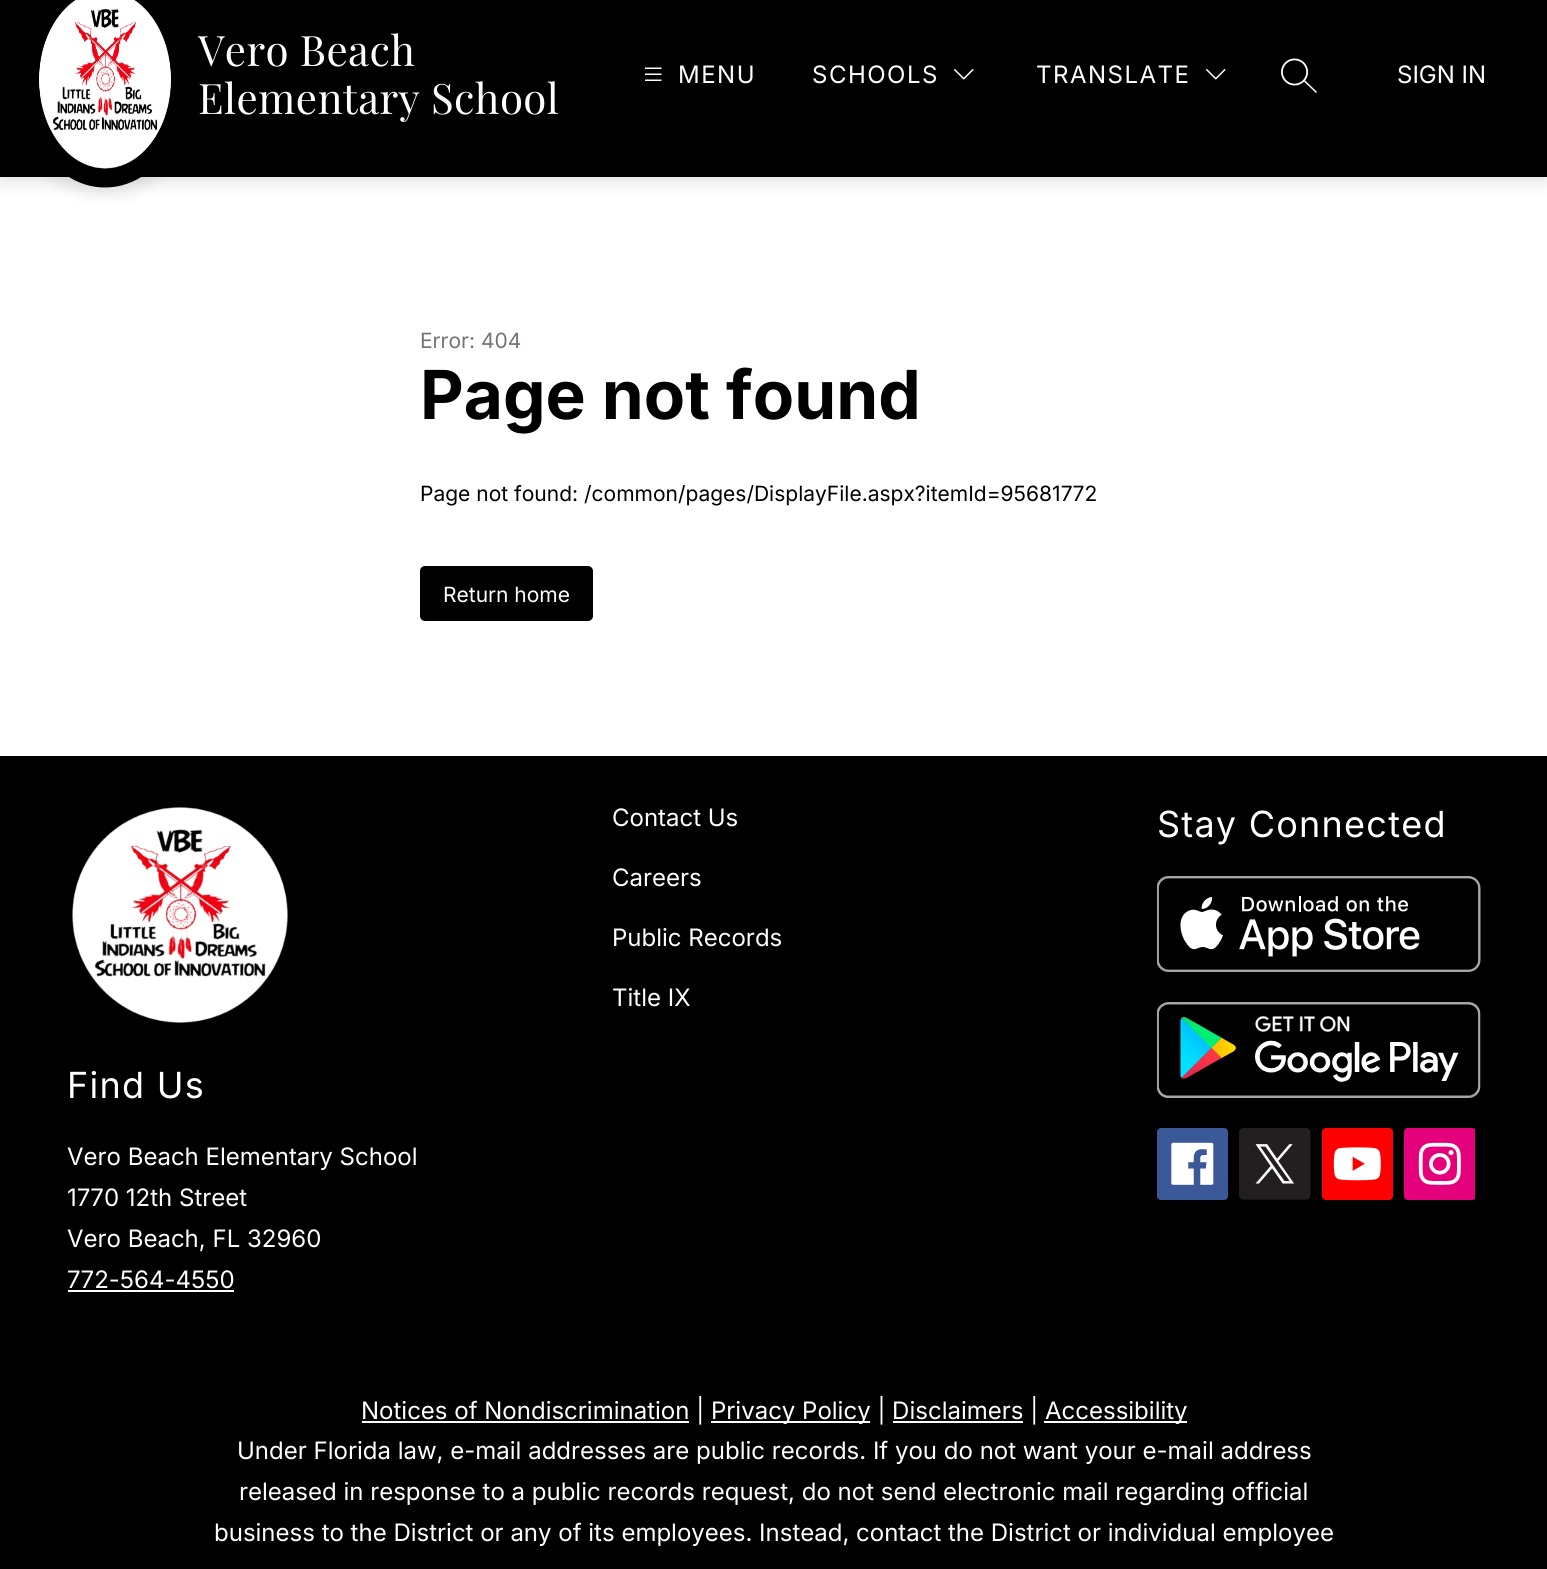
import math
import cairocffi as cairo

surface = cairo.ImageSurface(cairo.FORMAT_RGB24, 1547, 1569)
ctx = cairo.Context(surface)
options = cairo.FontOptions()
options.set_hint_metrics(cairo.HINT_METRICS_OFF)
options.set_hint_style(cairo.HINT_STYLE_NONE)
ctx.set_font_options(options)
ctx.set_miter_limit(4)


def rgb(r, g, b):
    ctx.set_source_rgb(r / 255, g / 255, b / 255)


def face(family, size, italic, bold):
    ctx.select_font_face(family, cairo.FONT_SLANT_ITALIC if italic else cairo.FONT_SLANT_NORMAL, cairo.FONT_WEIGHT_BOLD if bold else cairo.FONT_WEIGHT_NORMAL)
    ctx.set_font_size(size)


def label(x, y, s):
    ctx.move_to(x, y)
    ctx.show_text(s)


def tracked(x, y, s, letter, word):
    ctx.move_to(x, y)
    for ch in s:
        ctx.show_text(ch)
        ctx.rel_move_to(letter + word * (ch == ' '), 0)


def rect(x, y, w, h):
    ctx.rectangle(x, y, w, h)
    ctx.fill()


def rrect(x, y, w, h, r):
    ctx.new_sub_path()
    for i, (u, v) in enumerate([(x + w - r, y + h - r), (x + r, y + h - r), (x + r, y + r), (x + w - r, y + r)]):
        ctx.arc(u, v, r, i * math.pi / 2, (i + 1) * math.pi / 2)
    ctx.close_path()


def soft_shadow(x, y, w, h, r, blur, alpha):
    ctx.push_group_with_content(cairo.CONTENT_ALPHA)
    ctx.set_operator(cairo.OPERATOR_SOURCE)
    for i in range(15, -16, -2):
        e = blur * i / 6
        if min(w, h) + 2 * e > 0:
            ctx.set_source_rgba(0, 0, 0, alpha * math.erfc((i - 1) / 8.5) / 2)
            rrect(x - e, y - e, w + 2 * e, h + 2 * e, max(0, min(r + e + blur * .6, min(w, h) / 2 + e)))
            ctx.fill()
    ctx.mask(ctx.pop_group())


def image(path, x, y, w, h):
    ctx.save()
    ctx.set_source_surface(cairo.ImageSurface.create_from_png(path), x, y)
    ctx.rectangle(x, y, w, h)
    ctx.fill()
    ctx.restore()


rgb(255, 255, 255)
ctx.paint()
rgb(0, 0, 0)
soft_shadow(0, -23, 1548, 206, 0, 7.5, 0.1)
rgb(0, 0, 0)
rect(0, 0, 1547, 177)
rgb(0, 0, 0)
soft_shadow(21, -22, 168, 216, 84, 7.5, 0.1)
rgb(0, 0, 0)
ctx.new_path()
ctx.move_to(105, -28.5)
ctx.curve_to(151.5, -28.5, 189, 20, 189, 79.5)
ctx.curve_to(189, 139, 151.5, 187.5, 105, 187.5)
ctx.curve_to(58.5, 187.5, 21, 139, 21, 79.5)
ctx.curve_to(21, 20, 58.5, -28.5, 105, -28.5)
ctx.close_path()
ctx.fill()
image('image0.png', 39, 0, 132, 169)
face('Playfair Display', 42, 0, 0)
rgb(255, 255, 255)
tracked(198, 66, 'Vero Beach', 0.4, 0)
tracked(198, 114, 'Elementary School', 0.4, 0)
image('image1.png', 645, 67, 17, 14)
face('Inter', 24, 0, 0)
tracked(678, 83, 'MENU', 1.5, 0)
tracked(812, 83, 'SCHOOLS', 1.5, 0)
image('image2.png', 954, 69, 20, 11)
tracked(1036, 83, 'TRANSLATE', 1.5, 0)
image('image2.png', 1206, 69, 20, 11)
image('image3.png', 1281, 58, 36, 35)
label(1397, 83, 'SIGN IN')
face('Inter', 21, 0, 0)
rgb(116, 116, 116)
label(420, 348, 'Error: 404')
face('Inter', 67.5, 0, 1)
rgb(0, 0, 0)
label(420, 419, 'Page not found')
face('Inter', 21, 0, 0)
label(420, 501, 'Page not found: /common/pages/DisplayFile.aspx?itemId=95681772')
rrect(420, 566, 173, 55, 5)
ctx.fill()
rgb(255, 255, 255)
label(443, 602, 'Return home')
rgb(0, 0, 0)
rect(0, 756, 1547, 813)
face('Inter', 24, 0, 0)
rgb(255, 255, 255)
label(612, 826, 'Contact Us')
label(612, 886, 'Careers')
label(612, 946, 'Public Records')
label(612, 1006, 'Title IX')
face('Inter', 36, 0, 0)
tracked(1157, 837, 'Stay Connected', 1.25, 0)
image('image4.png', 1157, 876, 324, 96)
image('image5.png', 1157, 1002, 324, 96)
image('image6.png', 1157, 1128, 71, 72)
image('image7.png', 1239, 1128, 72, 72)
image('image8.png', 1322, 1128, 71, 72)
image('image9.png', 1404, 1128, 71, 72)
image('image10.png', 72, 807, 216, 216)
tracked(67, 1098, 'Find Us', 1.25, 0)
face('Inter', 24, 0, 0)
label(67, 1165, 'Vero Beach Elementary School')
label(67, 1206, '1770 12th Street')
label(67, 1247, 'Vero Beach, FL 32960')
label(67, 1288, '772-564-4550')
rect(68, 1290, 166, 2)
rect(362, 1421, 327, 2)
label(361, 1419, 'Notices of Nondiscrimination |')
rect(711, 1421, 159, 2)
label(711, 1419, 'Privacy Policy | Disclaimers |')
rect(1044, 1421, 143, 2)
label(1045, 1419, 'Accessibility')
rect(893, 1421, 130, 2)
label(237, 1459, 'Under Florida law, e-mail addresses are public records. If you do not want your e-mail address')
label(239, 1500, 'released in response to a public records request, do not send electronic mail regarding official')
label(214, 1541, 'business to the District or any of its employees. Instead, contact the District or individual employee')
surface.write_to_png('render.png')
